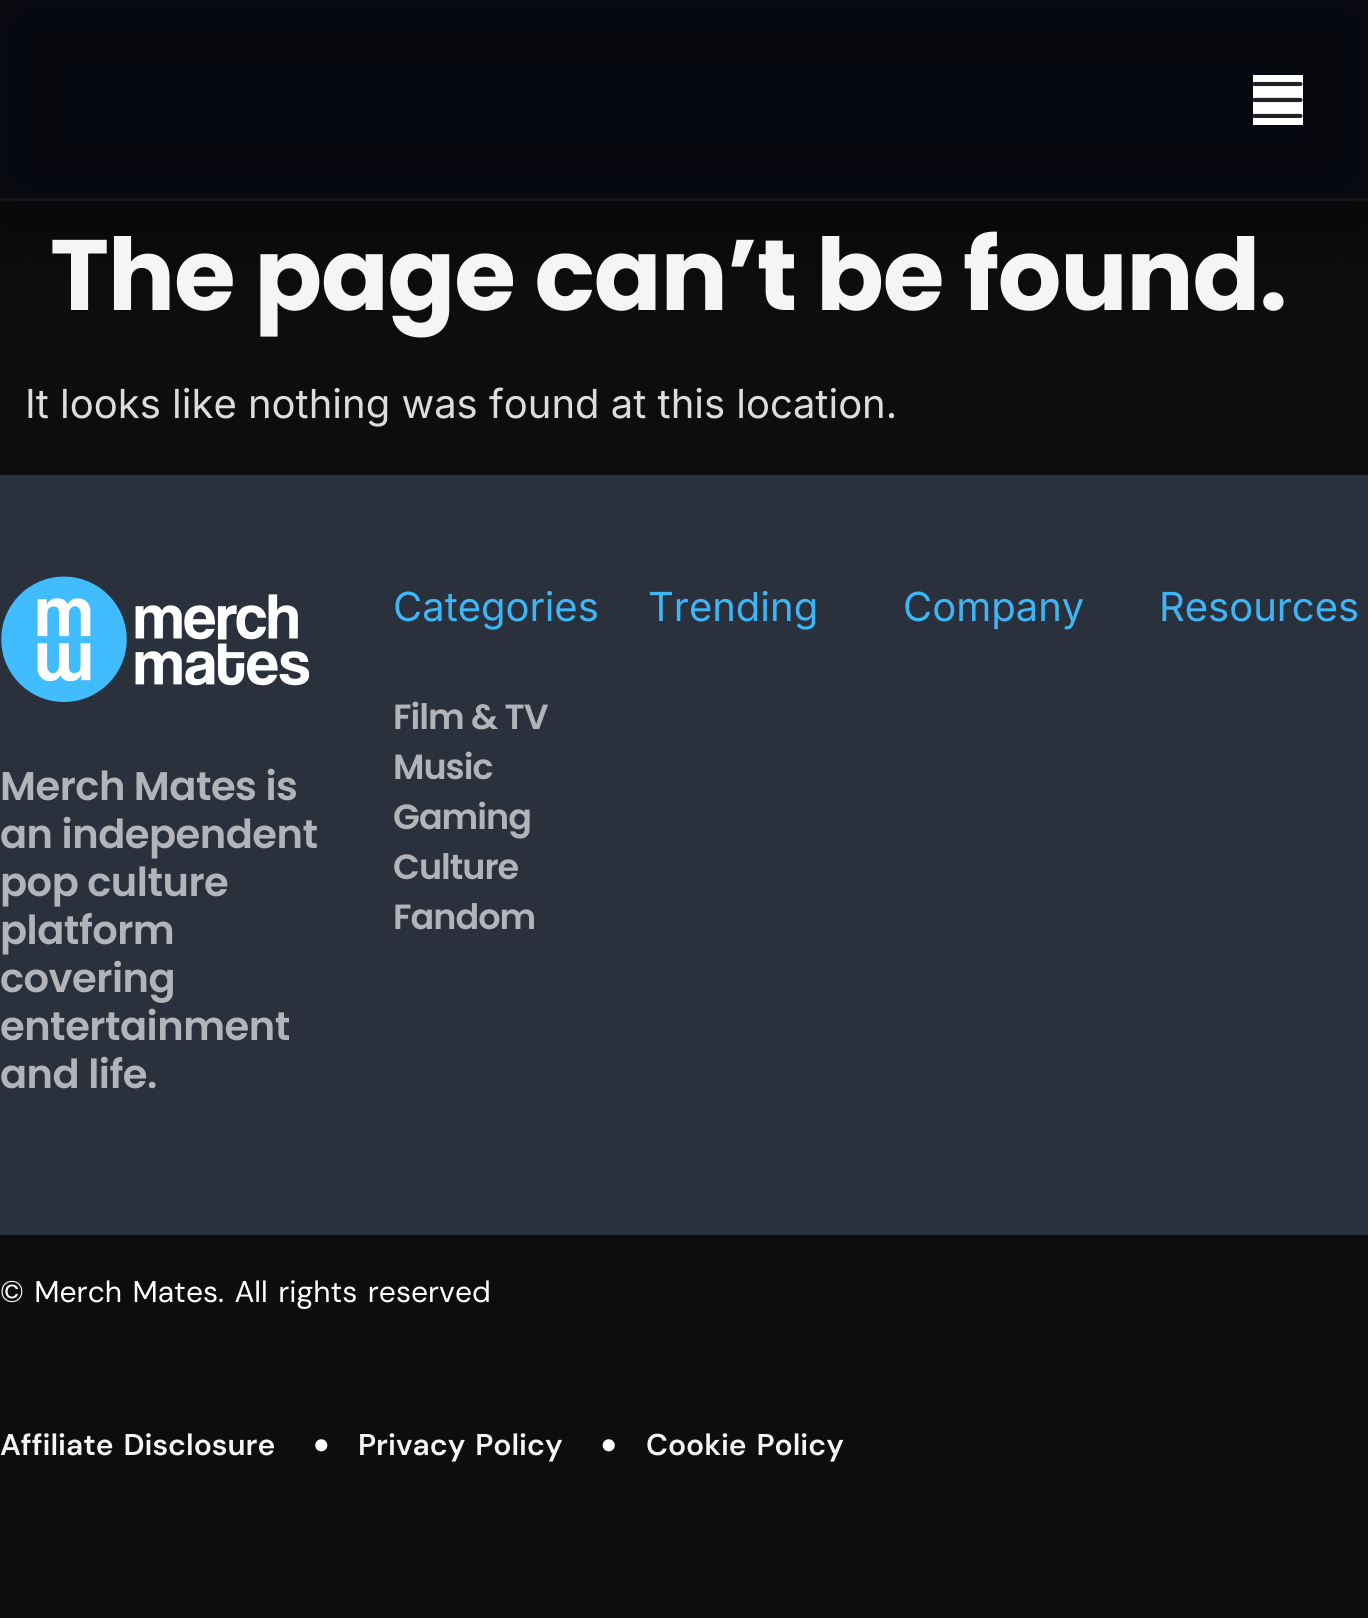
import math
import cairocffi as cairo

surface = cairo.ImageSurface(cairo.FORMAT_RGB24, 1368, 1618)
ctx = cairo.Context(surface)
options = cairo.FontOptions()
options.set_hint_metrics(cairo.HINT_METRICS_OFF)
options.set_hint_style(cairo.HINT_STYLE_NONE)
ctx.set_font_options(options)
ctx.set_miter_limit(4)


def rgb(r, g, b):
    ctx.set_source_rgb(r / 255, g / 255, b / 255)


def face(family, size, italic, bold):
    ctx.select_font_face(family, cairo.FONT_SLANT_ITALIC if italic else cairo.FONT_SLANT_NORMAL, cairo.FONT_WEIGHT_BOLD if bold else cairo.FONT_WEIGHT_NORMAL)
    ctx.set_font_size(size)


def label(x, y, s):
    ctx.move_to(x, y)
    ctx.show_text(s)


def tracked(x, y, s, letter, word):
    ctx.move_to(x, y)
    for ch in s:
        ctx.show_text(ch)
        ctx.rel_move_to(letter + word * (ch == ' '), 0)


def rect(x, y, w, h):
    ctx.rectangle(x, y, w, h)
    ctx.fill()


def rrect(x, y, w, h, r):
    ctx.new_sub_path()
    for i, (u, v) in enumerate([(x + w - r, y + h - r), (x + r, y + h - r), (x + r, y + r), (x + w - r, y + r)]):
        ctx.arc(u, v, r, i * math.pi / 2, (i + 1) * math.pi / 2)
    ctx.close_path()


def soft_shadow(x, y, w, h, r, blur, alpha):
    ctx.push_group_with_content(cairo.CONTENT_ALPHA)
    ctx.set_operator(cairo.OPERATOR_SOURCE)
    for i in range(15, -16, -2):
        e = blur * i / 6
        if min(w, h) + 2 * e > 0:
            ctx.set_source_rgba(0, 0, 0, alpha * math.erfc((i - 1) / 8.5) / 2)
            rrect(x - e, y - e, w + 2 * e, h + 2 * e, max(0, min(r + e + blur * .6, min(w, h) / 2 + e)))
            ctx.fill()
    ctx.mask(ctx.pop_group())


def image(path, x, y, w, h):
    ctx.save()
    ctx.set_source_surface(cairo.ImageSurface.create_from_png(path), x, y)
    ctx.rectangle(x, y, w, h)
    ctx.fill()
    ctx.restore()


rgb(13, 13, 15)
ctx.paint()
rgb(0, 0, 0)
soft_shadow(0, 25, 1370, 200, 0, 31, 0.55)
rgb(9, 10, 15)
rect(0, 0, 1368, 200)
ctx.set_source_rgba(1, 1, 1, 0.06)
rect(0, 198, 1368, 3)
rgb(5, 7, 16)
soft_shadow(0, 0, 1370, 198, 0, 55, 0.45)
rgb(255, 255, 255)
rect(1253, 75, 50, 50)
image('image0.png', 1253, 81, 50, 37)
face('Poppins', 100, 0, 1)
rgb(245, 245, 247)
tracked(50, 310, 'The page can’t be found.', -1.25, 0)
face('Inter', 40, 0, 0)
rgb(221, 221, 221)
label(25, 418, 'It looks like nothing was found at this location.')
rgb(43, 48, 61)
rect(0, 475, 1368, 760)
rgb(62, 181, 245)
label(393, 621, 'Categories')
face('Poppins SemiBold', 35, 0, 0)
rgb(178, 180, 186)
tracked(393, 729, 'Film & TV', -1, 0)
tracked(393, 779, 'Music', -1, 0)
tracked(393, 829, 'Gaming', -1, 0)
tracked(393, 879, 'Culture', -1, 0)
tracked(393, 929, 'Fandom', -1, 0)
face('Inter', 40, 0, 0)
rgb(62, 181, 245)
label(648, 621, 'Trending')
label(903, 621, 'Company')
label(1159, 621, 'Resources')
image('image1.png', 1, 576, 309, 126)
face('Poppins SemiBold', 40, 0, 0)
rgb(178, 180, 186)
tracked(0, 800, 'Merch Mates is', -0.5, 0)
tracked(0, 848, 'an independent', -0.5, 0)
tracked(0, 896, 'pop culture', -0.5, 0)
tracked(0, 944, 'platform', -0.5, 0)
tracked(0, 992, 'covering', -0.5, 0)
tracked(0, 1040, 'entertainment', -0.5, 0)
tracked(0, 1088, 'and life.', -0.5, 0)
face('DM Sans', 30, 0, 0)
rgb(255, 255, 255)
tracked(0, 1302, '© Merch Mates. All rights reserved', 0, 2.5)
face('DM Sans SemiBold', 30, 0, 0)
rgb(245, 245, 247)
tracked(0, 1455, 'Affiliate Disclosure', 0, 2.5)
image('image2.png', 315, 1439, 13, 13)
tracked(358, 1455, 'Privacy Policy', 0, 2.5)
image('image3.png', 602, 1439, 13, 13)
tracked(646, 1455, 'Cookie Policy', 0, 2.5)
surface.write_to_png('render.png')
